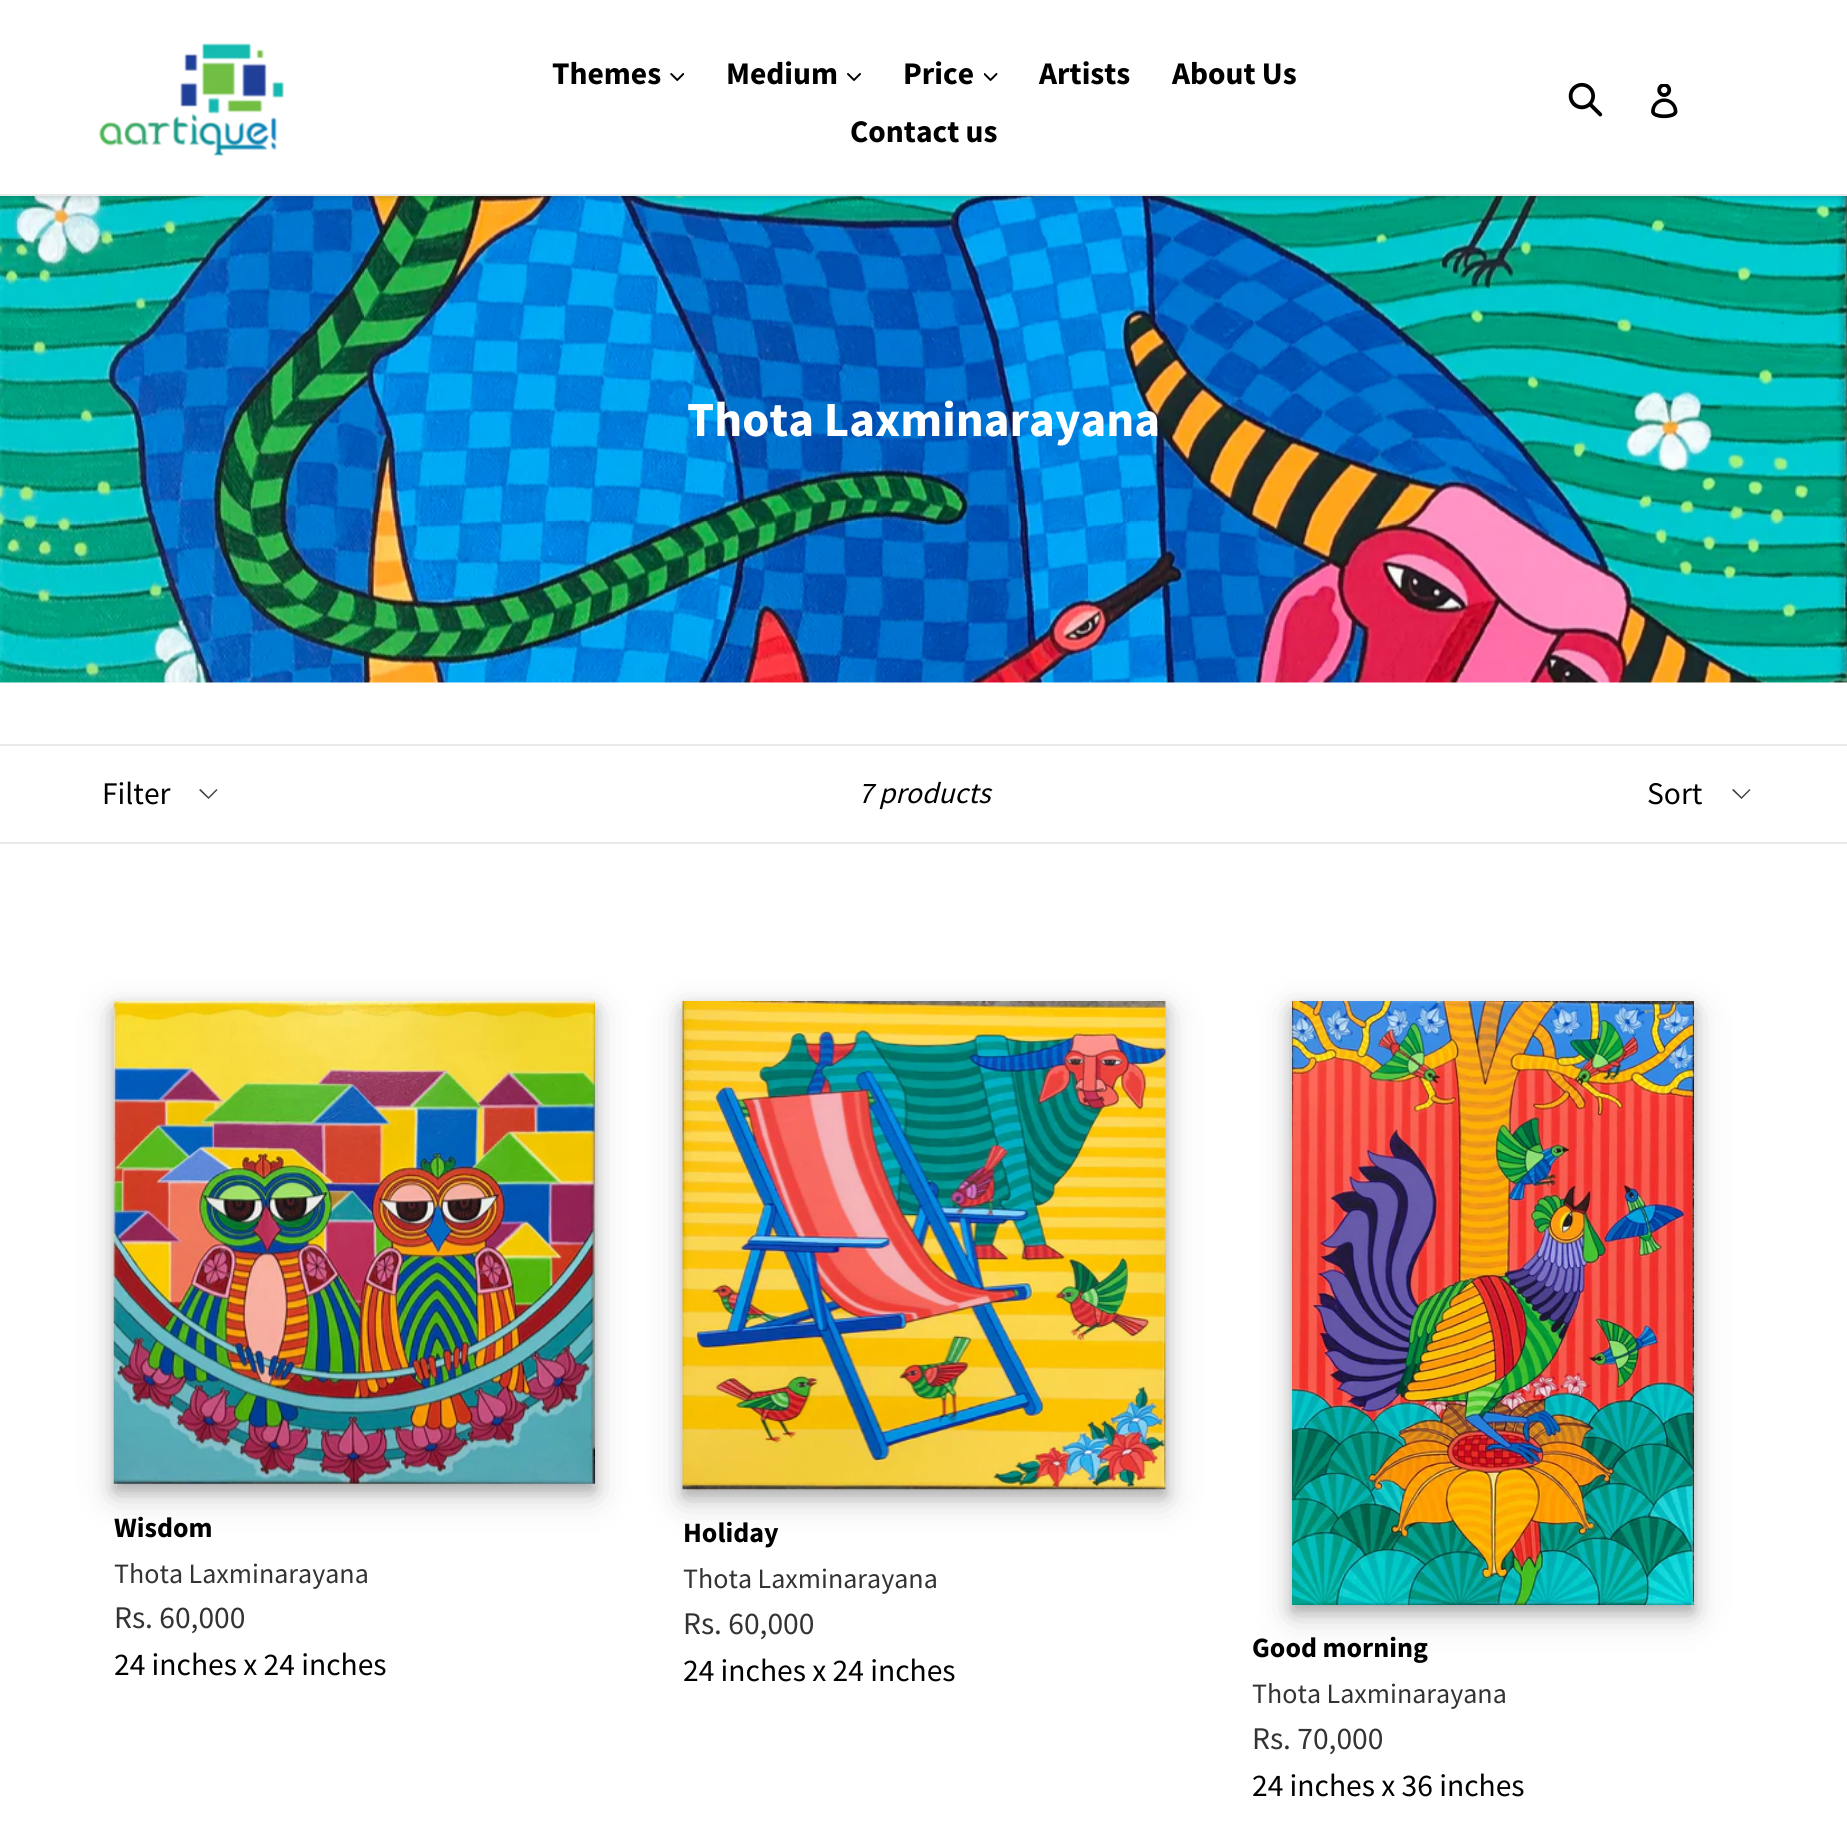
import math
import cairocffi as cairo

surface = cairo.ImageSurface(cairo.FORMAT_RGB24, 1847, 1834)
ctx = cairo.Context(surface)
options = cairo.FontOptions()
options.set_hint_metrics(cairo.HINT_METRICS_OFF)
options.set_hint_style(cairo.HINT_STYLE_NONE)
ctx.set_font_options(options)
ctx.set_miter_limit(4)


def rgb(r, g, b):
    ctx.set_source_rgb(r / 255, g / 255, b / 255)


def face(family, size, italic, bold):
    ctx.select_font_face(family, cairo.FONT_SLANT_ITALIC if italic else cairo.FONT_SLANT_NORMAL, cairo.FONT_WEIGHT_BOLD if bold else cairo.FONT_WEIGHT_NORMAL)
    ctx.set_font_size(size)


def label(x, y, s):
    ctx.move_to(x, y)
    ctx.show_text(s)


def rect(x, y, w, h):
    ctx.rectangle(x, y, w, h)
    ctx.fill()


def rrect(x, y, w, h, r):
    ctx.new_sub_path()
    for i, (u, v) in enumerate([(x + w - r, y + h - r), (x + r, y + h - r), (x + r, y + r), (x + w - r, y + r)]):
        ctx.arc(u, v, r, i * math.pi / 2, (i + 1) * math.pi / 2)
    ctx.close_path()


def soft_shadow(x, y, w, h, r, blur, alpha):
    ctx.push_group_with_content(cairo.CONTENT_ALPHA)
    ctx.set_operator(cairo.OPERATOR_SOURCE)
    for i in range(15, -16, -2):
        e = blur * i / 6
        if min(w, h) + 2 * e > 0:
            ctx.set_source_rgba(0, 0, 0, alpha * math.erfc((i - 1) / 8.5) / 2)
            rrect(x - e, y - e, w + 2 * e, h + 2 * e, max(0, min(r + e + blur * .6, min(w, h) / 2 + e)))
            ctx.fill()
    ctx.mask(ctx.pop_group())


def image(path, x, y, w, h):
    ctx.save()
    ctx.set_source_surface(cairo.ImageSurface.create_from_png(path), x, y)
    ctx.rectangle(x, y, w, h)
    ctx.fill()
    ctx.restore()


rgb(255, 255, 255)
ctx.paint()
image('image6.png', 0, 196, 1847, 487)
rgb(0, 0, 0)
soft_shadow(0, 2, 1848, 196, 0, 2.5, 0.15)
rgb(255, 255, 255)
rect(0, 0, 1847, 194)
rgb(232, 233, 235)
rect(0, 194, 1847, 2)
image('image0.png', 99, 43, 185, 114)
face('Source Sans Pro', 31.5, 0, 1)
rgb(0, 0, 0)
label(552, 84, 'Themes')
image('image1.png', 670, 73, 14, 8)
label(726, 84, 'Medium')
image('image2.png', 847, 73, 14, 8)
label(903, 84, 'Price')
image('image3.png', 984, 73, 14, 8)
label(1039, 84, 'Artists')
label(1172, 84, 'About Us')
label(850, 142, 'Contact us')
image('image4.png', 1568, 82, 35, 35)
image('image5.png', 1651, 84, 27, 35)
face('Source Sans Pro', 49, 0, 1)
rgb(255, 255, 255)
label(687, 436, 'Thota Laxminarayana')
rgb(232, 233, 235)
rect(0, 744, 1847, 2)
rect(0, 842, 1847, 2)
rgb(61, 66, 70)
ctx.new_path()
ctx.move_to(208.5, 799)
ctx.line_to(199, 790)
ctx.line_to(200.5, 789)
ctx.line_to(208.5, 797)
ctx.line_to(216.5, 789)
ctx.line_to(217.5, 790)
ctx.close_path()
ctx.fill()
face('Source Sans Pro', 31.5, 0, 0)
rgb(0, 0, 0)
label(102, 804, 'Filter')
face('Source Sans Pro', 29.75, 1, 0)
label(858, 803, '7 products')
rgb(61, 66, 70)
ctx.new_path()
ctx.move_to(1741.5, 799)
ctx.line_to(1732, 790)
ctx.line_to(1733.5, 789)
ctx.line_to(1741.5, 797)
ctx.line_to(1749.5, 789)
ctx.line_to(1750.5, 790)
ctx.close_path()
ctx.fill()
face('Source Sans Pro', 31.5, 0, 0)
rgb(0, 0, 0)
label(1647, 804, 'Sort')
rgb(0, 0, 0)
soft_shadow(114, 1012, 481, 483, 0, 17.5, 0.19)
soft_shadow(114, 1008, 481, 483, 0, 7, 0.2)
image('image7.png', 113, 1001, 482, 483)
face('Source Sans Pro', 28, 0, 1)
rgb(0, 0, 0)
label(114, 1537, 'Wisdom')
face('Source Sans Pro', 28, 0, 0)
rgb(51, 51, 51)
label(114, 1583, 'Thota Laxminarayana')
face('Source Sans Pro', 31.5, 0, 0)
label(114, 1628, 'Rs. 60,000')
rgb(0, 0, 0)
label(114, 1675, '24 inches x 24 inches')
rgb(0, 0, 0)
soft_shadow(683, 1012, 483, 488, 0, 17.5, 0.19)
soft_shadow(683, 1008, 483, 488, 0, 7, 0.2)
image('image8.png', 682, 1001, 484, 489)
face('Source Sans Pro', 28, 0, 1)
rgb(0, 0, 0)
label(683, 1542, 'Holiday')
face('Source Sans Pro', 28, 0, 0)
rgb(51, 51, 51)
label(683, 1588, 'Thota Laxminarayana')
face('Source Sans Pro', 31.5, 0, 0)
label(683, 1634, 'Rs. 60,000')
rgb(0, 0, 0)
label(683, 1681, '24 inches x 24 inches')
rgb(0, 0, 0)
soft_shadow(1292, 1012, 402, 603, 0, 17.5, 0.19)
soft_shadow(1292, 1008, 402, 604, 0, 7, 0.2)
image('image9.png', 1292, 1001, 402, 604)
face('Source Sans Pro', 28, 0, 1)
rgb(0, 0, 0)
label(1252, 1657, 'Good morning')
face('Source Sans Pro', 28, 0, 0)
rgb(51, 51, 51)
label(1252, 1703, 'Thota Laxminarayana')
face('Source Sans Pro', 31.5, 0, 0)
label(1252, 1749, 'Rs. 70,000')
rgb(0, 0, 0)
label(1252, 1796, '24 inches x 36 inches')
surface.write_to_png('render.png')
